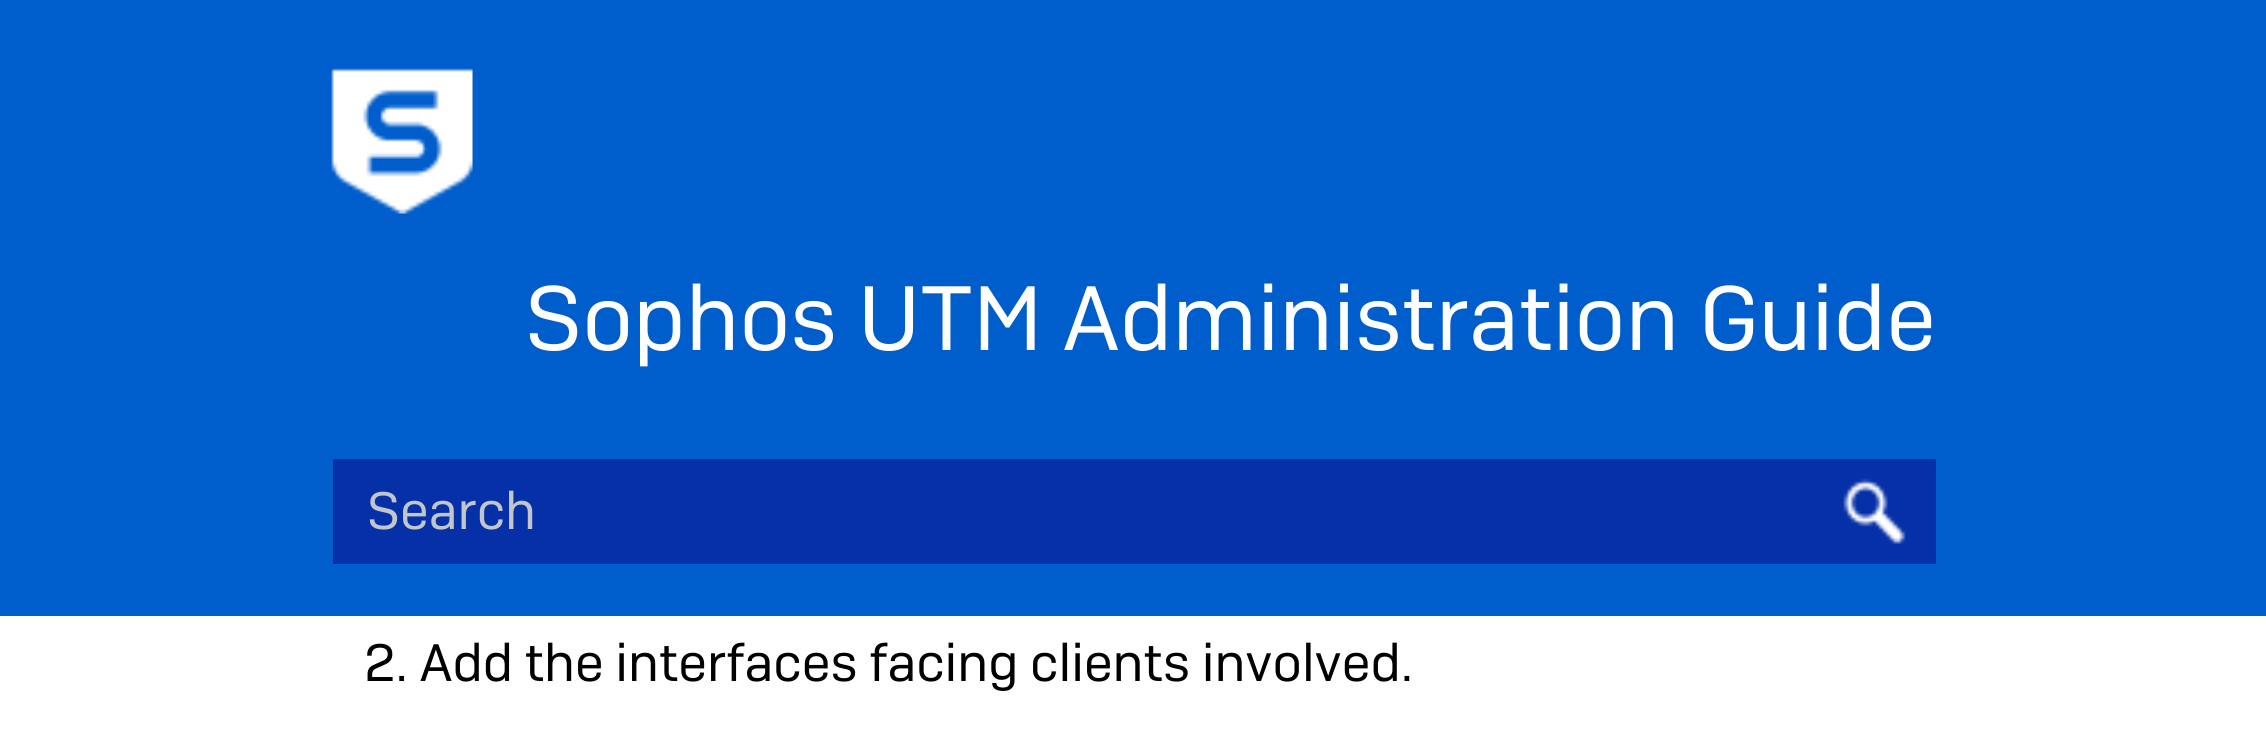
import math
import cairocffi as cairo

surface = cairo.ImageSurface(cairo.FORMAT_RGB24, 2266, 752)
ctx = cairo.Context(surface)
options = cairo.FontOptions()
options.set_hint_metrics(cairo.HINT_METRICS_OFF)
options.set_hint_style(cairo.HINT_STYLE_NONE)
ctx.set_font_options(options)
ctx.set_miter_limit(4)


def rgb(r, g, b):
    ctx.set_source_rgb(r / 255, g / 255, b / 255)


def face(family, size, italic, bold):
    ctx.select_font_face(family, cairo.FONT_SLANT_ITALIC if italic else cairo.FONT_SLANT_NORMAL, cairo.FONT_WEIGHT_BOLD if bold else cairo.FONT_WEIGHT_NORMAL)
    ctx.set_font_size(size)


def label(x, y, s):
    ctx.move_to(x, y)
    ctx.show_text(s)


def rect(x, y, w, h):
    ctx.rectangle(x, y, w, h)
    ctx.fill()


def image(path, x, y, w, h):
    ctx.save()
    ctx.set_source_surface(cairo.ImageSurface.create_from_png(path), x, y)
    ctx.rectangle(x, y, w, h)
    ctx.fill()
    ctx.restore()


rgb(255, 255, 255)
ctx.paint()
rgb(0, 93, 204)
rect(0, 0, 2266, 616)
image('image0.png', 331, 68, 142, 146)
face('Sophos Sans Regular', 91, 0, 0)
rgb(255, 255, 255)
label(525, 350, 'Sophos UTM Administration Guide')
rgb(5, 48, 168)
rect(333, 459, 1603, 105)
face('Sophos Sans Regular', 52.5, 0, 0)
rgb(194, 197, 202)
label(367, 529, 'Search')
image('image1.png', 1843, 478, 63, 66)
rgb(0, 0, 0)
label(364, 681, '2. Add the interfaces facing clients involved.')
surface.write_to_png('render.png')
